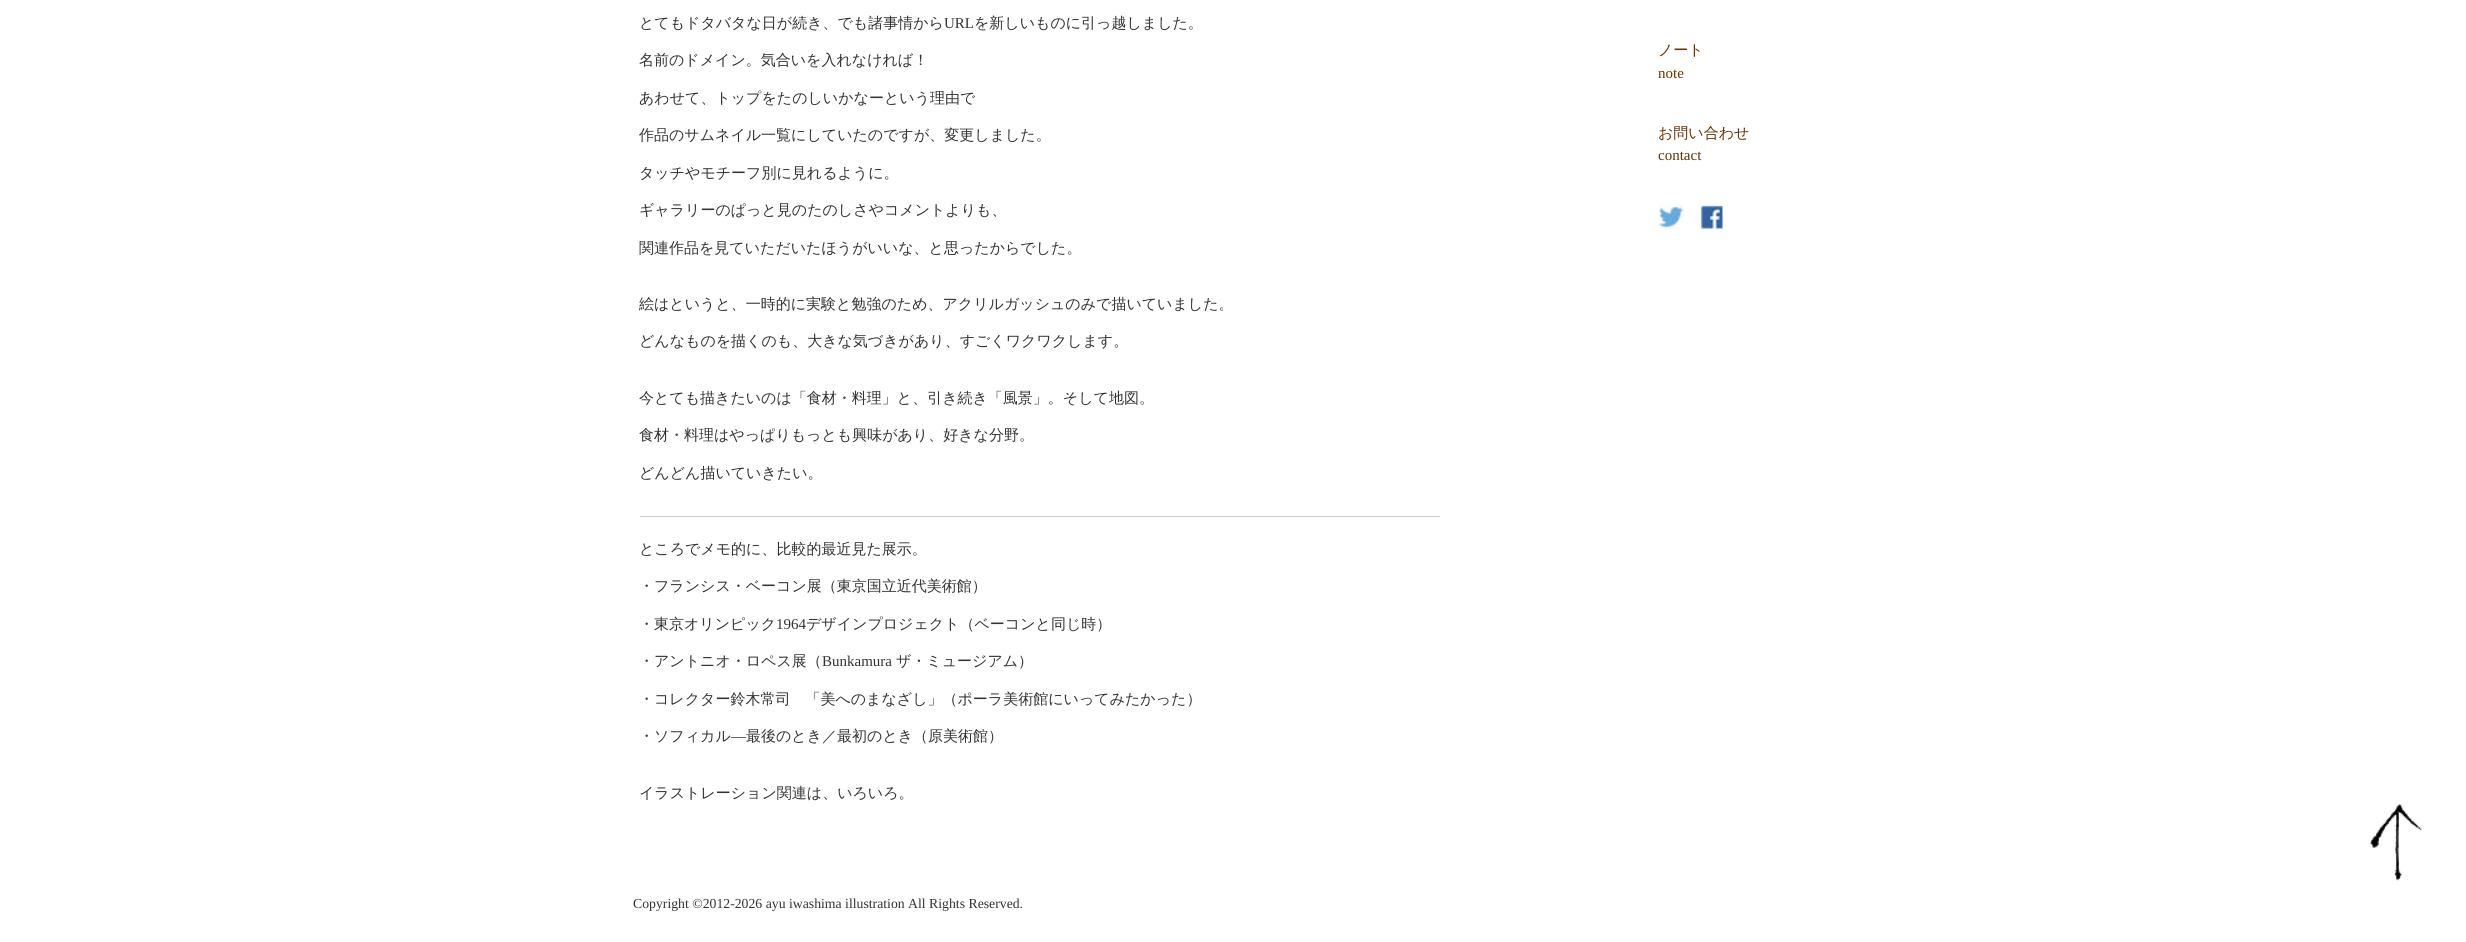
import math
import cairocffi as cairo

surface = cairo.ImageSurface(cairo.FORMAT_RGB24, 2466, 942)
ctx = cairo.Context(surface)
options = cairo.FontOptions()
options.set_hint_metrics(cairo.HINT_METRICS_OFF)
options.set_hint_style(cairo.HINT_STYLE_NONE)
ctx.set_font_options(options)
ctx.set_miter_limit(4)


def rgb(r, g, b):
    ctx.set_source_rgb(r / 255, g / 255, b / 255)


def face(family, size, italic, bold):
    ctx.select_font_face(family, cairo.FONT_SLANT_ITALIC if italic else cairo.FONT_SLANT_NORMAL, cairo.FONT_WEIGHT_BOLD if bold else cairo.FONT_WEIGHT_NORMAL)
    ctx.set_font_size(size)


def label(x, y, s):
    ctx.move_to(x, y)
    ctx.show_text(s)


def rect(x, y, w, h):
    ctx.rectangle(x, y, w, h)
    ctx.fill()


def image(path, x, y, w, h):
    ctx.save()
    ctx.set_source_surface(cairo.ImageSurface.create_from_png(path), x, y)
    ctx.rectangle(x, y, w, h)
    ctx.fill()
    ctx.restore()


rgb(255, 255, 255)
ctx.paint()
face('WenQuanYi Zen Hei Medium', 15, 0, 0)
rgb(51, 51, 51)
label(639, 28, 'とてもドタバタな日が続き、でも諸事情から')
face('Liberation Serif', 15, 0, 0)
label(944, 28, 'URL')
face('WenQuanYi Zen Hei Medium', 15, 0, 0)
label(974, 28, 'を新しいものに引っ越しました。')
label(639, 65, '名前のドメイン。気合いを入れなければ！')
label(639, 103, 'あわせて、トップをたのしいかなーという理由で')
label(639, 140, '作品のサムネイル一覧にしていたのですが、変更しました。')
label(639, 178, 'タッチやモチーフ別に見れるように。')
label(639, 215, 'ギャラリーのぱっと見のたのしさやコメントよりも、')
label(639, 253, '関連作品を見ていただいたほうがいいな、と思ったからでした。')
label(639, 309, '絵はというと、一時的に実験と勉強のため、アクリルガッシュのみで描いていました。')
label(639, 346, 'どんなものを描くのも、大きな気づきがあり、すごくワクワクします。')
label(639, 403, '今とても描きたいのは「食材・料理」と、引き続き「風景」。そして地図。')
label(639, 440, '食材・料理はやっぱりもっとも興味があり、好きな分野。')
label(639, 478, 'どんどん描いていきたい。')
rgb(204, 204, 204)
rect(640, 516, 800, 1)
rgb(51, 51, 51)
label(639, 554, 'ところでメモ的に、比較的最近見た展示。')
label(639, 591, '・フランシス・ベーコン展（東京国立近代美術館）')
label(639, 629, '・東京オリンピック')
face('Liberation Serif', 15, 0, 0)
label(776, 629, '1964')
face('WenQuanYi Zen Hei Medium', 15, 0, 0)
label(806, 629, 'デザインプロジェクト（ベーコンと同じ時）')
label(639, 666, '・アントニオ・ロペス展（')
face('Liberation Serif', 15, 0, 0)
label(822, 666, 'Bunkamura')
face('WenQuanYi Zen Hei Medium', 15, 0, 0)
label(896, 666, 'ザ・ミュージアム）')
label(639, 704, '・コレクター鈴木常司　「美へのまなざし」（ポーラ美術館にいってみたかった）')
label(639, 741, '・ソフィカル')
face('Liberation Serif', 15, 0, 0)
label(731, 741, '―')
face('WenQuanYi Zen Hei Medium', 15, 0, 0)
label(746, 741, '最後のとき／最初のとき（原美術館）')
label(639, 798, 'イラストレーション関連は、いろいろ。')
rgb(102, 51, 0)
label(1658, 55, 'ノート')
face('Liberation Serif', 15, 0, 0)
label(1658, 78, 'note')
face('WenQuanYi Zen Hei Medium', 15, 0, 0)
label(1658, 138, 'お問い合わせ')
face('Liberation Serif', 15, 0, 0)
label(1658, 160, 'contact')
image('image0.png', 1658, 203, 26, 27)
image('image1.png', 1698, 203, 26, 27)
face('Liberation Serif', 13.75, 0, 0)
rgb(51, 51, 51)
label(633, 908, 'Copyright ©2012-2026 ayu iwashima illustration All Rights Reserved.')
image('image2.png', 2370, 803, 52, 78)
surface.write_to_png('render.png')
